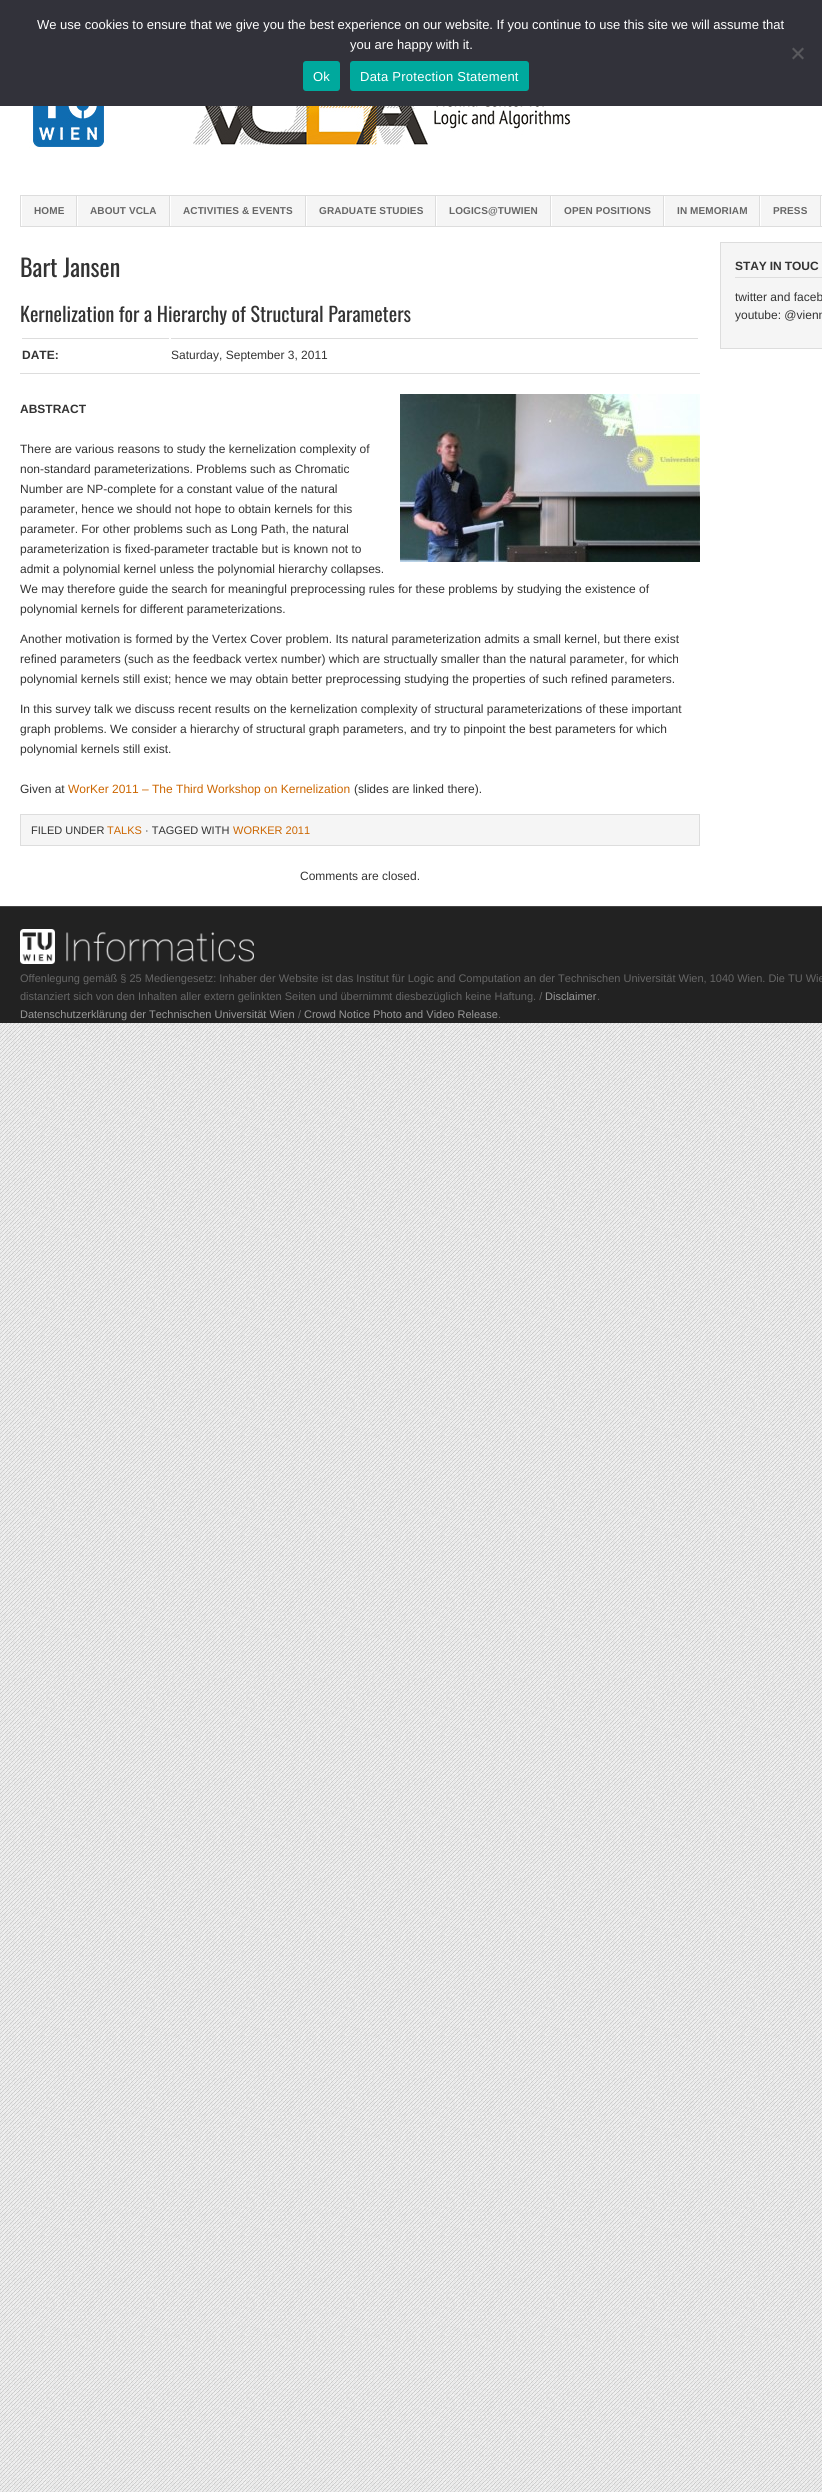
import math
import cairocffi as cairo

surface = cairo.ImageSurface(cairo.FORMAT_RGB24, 822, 2492)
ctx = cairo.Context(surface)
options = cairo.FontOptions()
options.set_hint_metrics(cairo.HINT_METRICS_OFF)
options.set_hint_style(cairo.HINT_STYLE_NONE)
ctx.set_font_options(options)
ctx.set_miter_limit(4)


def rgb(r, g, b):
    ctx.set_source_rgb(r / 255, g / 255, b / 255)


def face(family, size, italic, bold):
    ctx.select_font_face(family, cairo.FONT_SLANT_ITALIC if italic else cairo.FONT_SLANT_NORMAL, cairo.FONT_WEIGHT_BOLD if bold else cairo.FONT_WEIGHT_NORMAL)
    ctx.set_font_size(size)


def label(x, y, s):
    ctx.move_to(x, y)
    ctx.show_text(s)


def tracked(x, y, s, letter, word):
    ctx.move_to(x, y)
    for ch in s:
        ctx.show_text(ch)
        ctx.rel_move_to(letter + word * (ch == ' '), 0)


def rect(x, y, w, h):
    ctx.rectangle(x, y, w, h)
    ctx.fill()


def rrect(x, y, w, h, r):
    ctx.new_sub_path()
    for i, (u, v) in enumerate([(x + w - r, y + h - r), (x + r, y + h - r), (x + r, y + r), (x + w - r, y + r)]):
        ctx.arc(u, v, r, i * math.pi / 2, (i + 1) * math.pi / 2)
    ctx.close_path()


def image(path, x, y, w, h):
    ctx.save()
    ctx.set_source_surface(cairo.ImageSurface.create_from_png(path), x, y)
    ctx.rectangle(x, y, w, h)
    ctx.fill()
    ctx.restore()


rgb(255, 255, 255)
ctx.paint()
image('image0.png', 0, 1023, 822, 1469)
rgb(50, 50, 58)
rect(0, 0, 822, 106)
face('Liberation Sans', 13, 0, 0)
rgb(255, 255, 255)
label(37, 29, 'We use cookies to ensure that we give you the best experience on our website. If you continue to use this site we will assume that')
label(350, 49, 'you are happy with it.')
rgb(89, 89, 93)
ctx.new_path()
ctx.move_to(802.5, 47.5)
ctx.line_to(804, 49)
ctx.line_to(793.5, 59.5)
ctx.line_to(792, 58)
ctx.close_path()
ctx.fill()
ctx.new_path()
ctx.move_to(792, 49)
ctx.line_to(793.5, 47.5)
ctx.line_to(804, 58)
ctx.line_to(802.5, 59.5)
ctx.close_path()
ctx.fill()
rgb(0, 169, 157)
rrect(303, 61, 37, 30, 3)
ctx.fill()
rgb(255, 255, 255)
tracked(313, 81, 'Ok', 0.25, 0)
rgb(0, 169, 157)
rrect(350, 61, 179, 30, 3)
ctx.fill()
rgb(255, 255, 255)
tracked(360, 81, 'Data Protection Statement', 0.25, 0)
image('image1.png', 29, 106, 542, 42)
rgb(245, 245, 245)
rect(22, 196, 798, 30)
ctx.rectangle(20.5, 195.5, 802, 31)
rgb(221, 221, 221)
ctx.set_line_width(1)
ctx.stroke()
rect(76, 196, 1, 30)
face('Liberation Sans', 10, 0, 1)
rgb(102, 102, 102)
tracked(34, 214, 'HOME', 0.1, 0)
rgb(221, 221, 221)
rect(169, 196, 1, 30)
rgb(255, 255, 255)
rect(77, 196, 1, 30)
rgb(102, 102, 102)
tracked(90, 214, 'ABOUT VCLA', 0.1, 0)
rgb(221, 221, 221)
rect(305, 196, 1, 30)
rgb(255, 255, 255)
rect(170, 196, 1, 30)
rgb(102, 102, 102)
tracked(183, 214, 'ACTIVITIES & EVENTS', 0.1, 0)
rgb(221, 221, 221)
rect(435, 196, 1, 30)
rgb(255, 255, 255)
rect(306, 196, 1, 30)
rgb(102, 102, 102)
tracked(319, 214, 'GRADUATE STUDIES', 0.1, 0)
rgb(221, 221, 221)
rect(550, 196, 1, 30)
rgb(255, 255, 255)
rect(436, 196, 1, 30)
rgb(102, 102, 102)
tracked(449, 214, 'LOGICS@TUWIEN', 0.1, 0)
rgb(221, 221, 221)
rect(663, 196, 1, 30)
rgb(255, 255, 255)
rect(551, 196, 1, 30)
rgb(102, 102, 102)
tracked(564, 214, 'OPEN POSITIONS', 0.1, 0)
rgb(221, 221, 221)
rect(759, 196, 1, 30)
rgb(255, 255, 255)
rect(664, 196, 1, 30)
rgb(102, 102, 102)
tracked(677, 214, 'IN MEMORIAM', 0.1, 0)
rgb(221, 221, 221)
rect(820, 196, 1, 30)
rgb(255, 255, 255)
rect(760, 196, 1, 30)
rgb(102, 102, 102)
tracked(773, 214, 'PRESS', 0.1, 0)
face('Oswald', 24, 0, 0)
rgb(51, 51, 51)
label(20, 277, 'Bart Jansen')
face('Oswald', 20, 0, 0)
label(20, 322, 'Kernelization for a Hierarchy of Structural Parameters')
rgb(221, 221, 221)
rect(20, 373, 680, 1)
rect(22, 338, 147, 1)
face('Liberation Sans', 12, 0, 1)
rgb(51, 51, 51)
label(22, 359, 'DATE:')
rgb(221, 221, 221)
rect(171, 338, 527, 1)
face('Liberation Sans', 12, 0, 0)
rgb(51, 51, 51)
label(171, 359, 'Saturday, September 3, 2011')
face('Liberation Sans', 12, 0, 1)
label(20, 413, 'ABSTRACT')
image('image2.png', 400, 394, 300, 168)
face('Liberation Sans', 12, 0, 0)
label(20, 453, 'There are various reasons to study the kernelization complexity of')
label(20, 473, 'non-standard parameterizations. Problems such as Chromatic')
label(20, 493, 'Number are NP-complete for a constant value of the natural')
label(20, 513, 'parameter, hence we should not hope to obtain kernels for this')
label(20, 533, 'parameter. For other problems such as Long Path, the natural')
label(20, 553, 'parameterization is fixed-parameter tractable but is known not to')
label(20, 573, 'admit a polynomial kernel unless the polynomial hierarchy collapses.')
label(20, 593, 'We may therefore guide the search for meaningful preprocessing rules for these problems by studying the existence of')
label(20, 613, 'polynomial kernels for different parameterizations.')
label(20, 643, 'Another motivation is formed by the Vertex Cover problem. Its natural parameterization admits a small kernel, but there exist')
label(20, 663, 'refined parameters (such as the feedback vertex number) which are structually smaller than the natural parameter, for which')
label(20, 683, 'polynomial kernels still exist; hence we may obtain better preprocessing studying the properties of such refined parameters.')
label(20, 713, 'In this survey talk we discuss recent results on the kernelization complexity of structural parameterizations of these important')
label(20, 733, 'graph problems. We consider a hierarchy of structural graph parameters, and try to pinpoint the best parameters for which')
label(20, 753, 'polynomial kernels still exist.')
label(20, 793, 'Given at')
rgb(204, 102, 0)
label(68, 793, 'WorKer 2011 – The Third Workshop on Kernelization')
rgb(51, 51, 51)
label(354, 793, '(slides are linked there).')
rgb(245, 245, 245)
ctx.rectangle(20.5, 814.5, 679, 31)
ctx.fill_preserve()
rgb(221, 221, 221)
ctx.stroke()
face('Liberation Sans', 11, 0, 0)
rgb(51, 51, 51)
label(31, 834, 'FILED UNDER')
rgb(204, 102, 0)
label(107, 834, 'TALKS')
rgb(51, 51, 51)
label(145, 834, '· TAGGED WITH')
rgb(204, 102, 0)
label(233, 834, 'WORKER 2011')
face('Liberation Sans', 12, 0, 0)
rgb(51, 51, 51)
label(300, 880, 'Comments are closed.')
rgb(245, 245, 245)
ctx.rectangle(720.5, 242.5, 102, 106)
ctx.fill_preserve()
rgb(221, 221, 221)
ctx.stroke()
rect(735, 277, 87, 1)
face('Liberation Sans', 12, 0, 1)
rgb(51, 51, 51)
tracked(735, 270, 'STAY IN TOUC', -0.1, 0)
face('Liberation Sans', 12, 0, 0)
label(735, 301, 'twitter and faceb')
label(735, 319, 'youtube: @vienn')
rgb(34, 34, 34)
rect(0, 907, 822, 116)
rgb(68, 68, 68)
rect(0, 906, 822, 1)
image('image3.png', 20, 929, 234, 35)
face('Liberation Sans', 11, 0, 0)
rgb(102, 102, 102)
label(20, 982, 'Offenlegung gemäß § 25 Mediengesetz: Inhaber der Website ist das Institut für Logic and Computation an der Technischen Universität Wien, 1040 Wien. Die TU Wie')
label(20, 1000, 'distanziert sich von den Inhalten aller extern gelinkten Seiten und übernimmt diesbezüglich keine Haftung. /')
rgb(153, 153, 153)
label(545, 1000, 'Disclaimer')
rgb(102, 102, 102)
label(597, 1000, '.')
rgb(153, 153, 153)
label(20, 1018, 'Datenschutzerklärung der Technischen Universität Wien')
rgb(102, 102, 102)
label(298, 1018, '/')
rgb(153, 153, 153)
label(304, 1018, 'Crowd Notice Photo and Video Release')
rgb(102, 102, 102)
label(498, 1018, '.')
surface.write_to_png('render.png')
